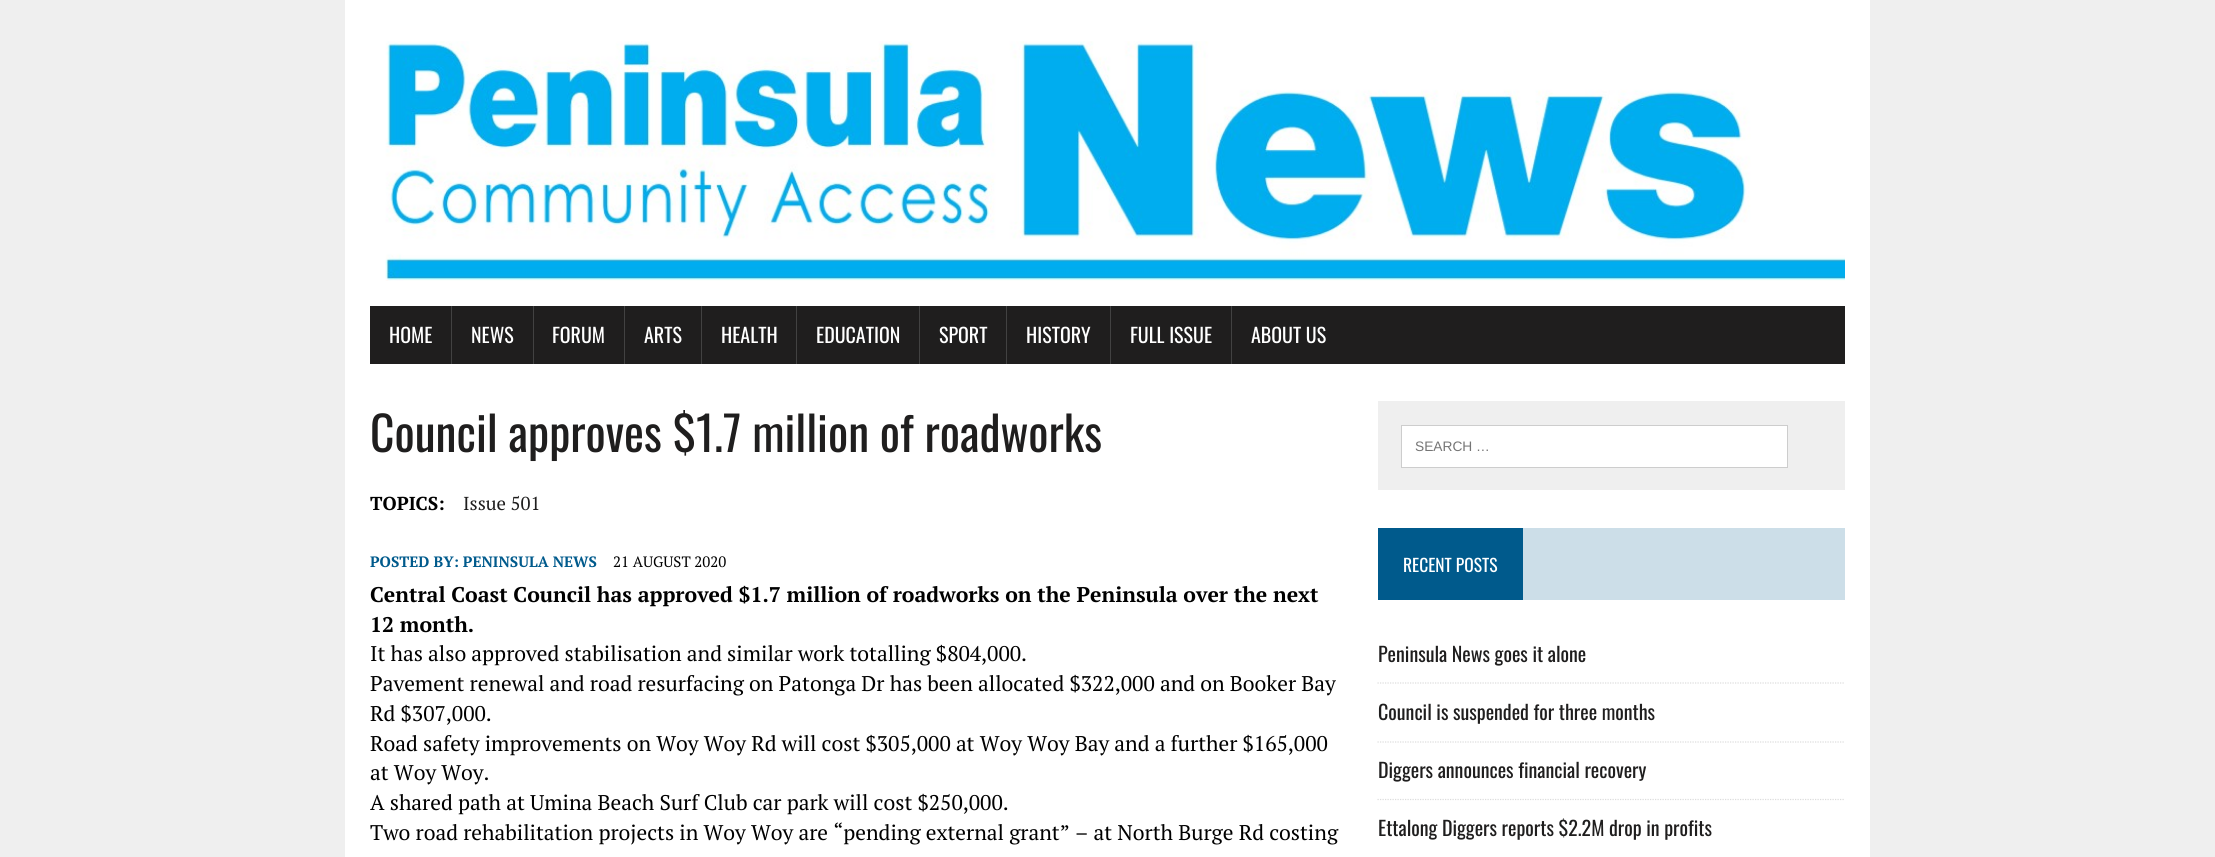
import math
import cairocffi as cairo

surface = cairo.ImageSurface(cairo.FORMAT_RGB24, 2215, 857)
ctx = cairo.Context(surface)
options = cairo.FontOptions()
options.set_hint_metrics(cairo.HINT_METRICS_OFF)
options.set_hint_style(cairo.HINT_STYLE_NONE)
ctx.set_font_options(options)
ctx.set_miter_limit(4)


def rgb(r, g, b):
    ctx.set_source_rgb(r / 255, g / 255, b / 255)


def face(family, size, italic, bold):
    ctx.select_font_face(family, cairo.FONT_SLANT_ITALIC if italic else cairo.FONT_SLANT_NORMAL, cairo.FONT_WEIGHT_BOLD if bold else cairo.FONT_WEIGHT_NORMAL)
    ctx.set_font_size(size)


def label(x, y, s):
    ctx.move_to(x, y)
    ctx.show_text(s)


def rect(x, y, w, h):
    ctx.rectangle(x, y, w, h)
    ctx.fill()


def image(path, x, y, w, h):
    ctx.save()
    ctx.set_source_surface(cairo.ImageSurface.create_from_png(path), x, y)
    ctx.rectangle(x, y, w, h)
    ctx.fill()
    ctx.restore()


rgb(239, 239, 239)
ctx.paint()
rgb(255, 255, 255)
rect(345, 0, 1525, 857)
image('image0.png', 385, 41, 1460, 240)
rgb(31, 30, 30)
rect(370, 306, 1475, 58)
face('Oswald', 20, 0, 0)
rgb(255, 255, 255)
label(389, 343, 'HOME')
rgb(66, 66, 66)
rect(451, 306, 1, 58)
rgb(255, 255, 255)
label(471, 343, 'NEWS')
rgb(66, 66, 66)
rect(533, 306, 1, 58)
rgb(255, 255, 255)
label(552, 343, 'FORUM')
rgb(66, 66, 66)
rect(624, 306, 1, 58)
rgb(255, 255, 255)
label(644, 343, 'ARTS')
rgb(66, 66, 66)
rect(701, 306, 1, 58)
rgb(255, 255, 255)
label(721, 343, 'HEALTH')
rgb(66, 66, 66)
rect(796, 306, 1, 58)
rgb(255, 255, 255)
label(816, 343, 'EDUCATION')
rgb(66, 66, 66)
rect(919, 306, 1, 58)
rgb(255, 255, 255)
label(939, 343, 'SPORT')
rgb(66, 66, 66)
rect(1006, 306, 1, 58)
rgb(255, 255, 255)
label(1026, 343, 'HISTORY')
rgb(66, 66, 66)
rect(1110, 306, 1, 58)
rgb(255, 255, 255)
label(1130, 343, 'FULL ISSUE')
rgb(66, 66, 66)
rect(1231, 306, 1, 58)
rgb(255, 255, 255)
label(1251, 343, 'ABOUT US')
face('Oswald', 47.5, 0, 0)
rgb(31, 30, 30)
label(370, 452, 'Council approves $1.7 million of roadworks')
face('PT Serif', 18.75, 0, 1)
rgb(0, 0, 0)
label(370, 510, 'TOPICS:')
face('PT Serif', 18.75, 0, 0)
rgb(31, 30, 30)
label(463, 510, 'Issue 501')
face('PT Serif', 15, 0, 1)
rgb(0, 90, 140)
label(370, 567, 'POSTED BY: PENINSULA NEWS')
face('PT Serif', 15, 0, 0)
rgb(0, 0, 0)
label(613, 567, '21 AUGUST 2020')
face('PT Serif', 21.25, 0, 1)
label(370, 602, 'Central Coast Council has approved $1.7 million of roadworks on the Peninsula over the next')
label(370, 632, '12 month.')
face('PT Serif', 21.25, 0, 0)
label(370, 661, 'It has also approved stabilisation and similar work totalling $804,000.')
label(370, 691, 'Pavement renewal and road resurfacing on Patonga Dr has been allocated $322,000 and on Booker Bay')
label(370, 721, 'Rd $307,000.')
label(370, 751, 'Road safety improvements on Woy Woy Rd will cost $305,000 at Woy Woy Bay and a further $165,000')
label(370, 780, 'at Woy Woy.')
label(370, 810, 'A shared path at Umina Beach Surf Club car park will cost $250,000.')
label(370, 840, 'Two road rehabilitation projects in Woy Woy are “pending external grant” – at North Burge Rd costing')
rgb(239, 239, 239)
rect(1378, 401, 467, 89)
rgb(255, 255, 255)
ctx.rectangle(1401.5, 425.5, 386, 42)
ctx.fill_preserve()
rgb(205, 205, 205)
ctx.set_line_width(1)
ctx.stroke()
face('Liberation Sans', 13.75, 0, 0)
rgb(117, 117, 117)
label(1415, 451, 'SEARCH …')
rgb(204, 222, 232)
rect(1523, 528, 322, 72)
rgb(0, 90, 140)
rect(1378, 528, 145, 72)
face('Oswald', 17.5, 0, 0)
rgb(255, 255, 255)
label(1403, 572, 'RECENT POSTS')
ctx.new_path()
ctx.move_to(1377.5, 683)
ctx.line_to(1845, 683)
rgb(220, 220, 220)
ctx.set_line_width(1.2)
ctx.set_dash([1.25, 1.25])
ctx.stroke()
face('Oswald', 20, 0, 0)
rgb(31, 30, 30)
label(1378, 662, 'Peninsula News goes it alone')
ctx.new_path()
ctx.move_to(1377.5, 742)
ctx.line_to(1845, 742)
rgb(220, 220, 220)
ctx.stroke()
rgb(31, 30, 30)
label(1378, 720, 'Council is suspended for three months')
ctx.new_path()
ctx.move_to(1377.5, 799.5)
ctx.line_to(1845, 799.5)
rgb(220, 220, 220)
ctx.stroke()
rgb(31, 30, 30)
label(1378, 778, 'Diggers announces financial recovery')
label(1378, 836, 'Ettalong Diggers reports $2.2M drop in profits')
surface.write_to_png('render.png')
